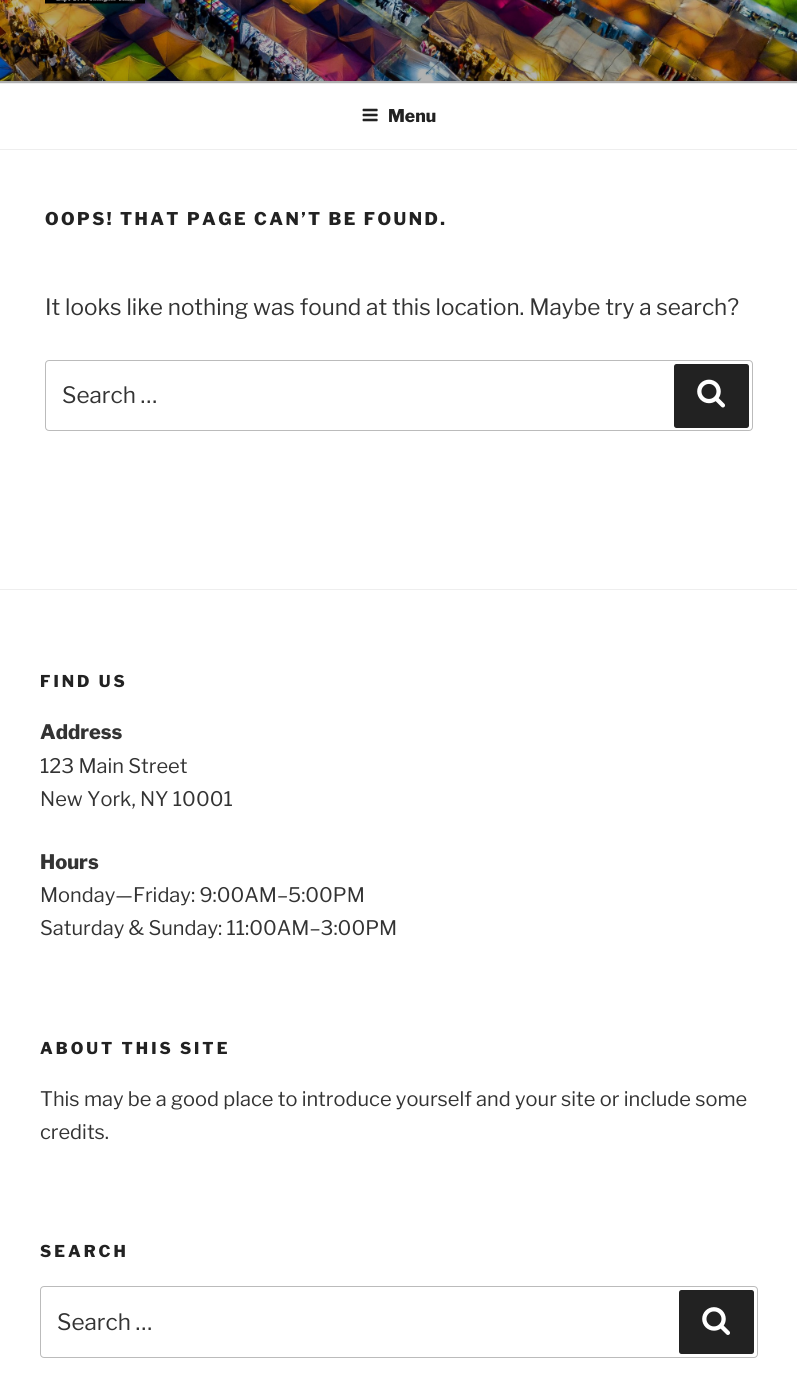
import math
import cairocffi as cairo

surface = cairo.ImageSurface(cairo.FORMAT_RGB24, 797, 1380)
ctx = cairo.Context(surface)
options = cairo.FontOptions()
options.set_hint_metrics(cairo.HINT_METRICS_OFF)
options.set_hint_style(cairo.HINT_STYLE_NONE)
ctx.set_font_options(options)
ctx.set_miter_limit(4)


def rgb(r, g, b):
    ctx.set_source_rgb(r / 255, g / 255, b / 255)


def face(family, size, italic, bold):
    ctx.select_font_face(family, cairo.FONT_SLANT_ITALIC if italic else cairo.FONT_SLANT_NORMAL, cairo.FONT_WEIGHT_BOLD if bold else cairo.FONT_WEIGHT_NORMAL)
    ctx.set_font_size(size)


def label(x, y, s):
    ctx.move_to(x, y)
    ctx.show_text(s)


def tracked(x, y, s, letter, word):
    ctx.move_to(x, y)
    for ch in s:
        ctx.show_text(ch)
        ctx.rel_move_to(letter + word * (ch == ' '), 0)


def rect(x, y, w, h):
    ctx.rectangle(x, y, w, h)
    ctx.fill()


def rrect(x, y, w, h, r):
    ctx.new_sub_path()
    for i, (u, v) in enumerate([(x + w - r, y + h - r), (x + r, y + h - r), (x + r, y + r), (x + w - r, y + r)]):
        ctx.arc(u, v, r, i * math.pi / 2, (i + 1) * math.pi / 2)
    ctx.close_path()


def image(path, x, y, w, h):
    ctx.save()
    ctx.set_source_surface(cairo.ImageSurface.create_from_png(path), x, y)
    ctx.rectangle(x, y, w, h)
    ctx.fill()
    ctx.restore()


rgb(255, 255, 255)
ctx.paint()
rgb(250, 250, 250)
rect(0, 81, 797, 2)
image('image0.png', 0, 0, 797, 81)
gradient = cairo.LinearGradient(399, -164, 399, 83)
gradient.add_color_stop_rgba(0, 0, 0, 0, 0)
gradient.add_color_stop_rgba(0.75, 0, 0, 0, 0.3)
gradient.add_color_stop_rgba(1, 0, 0, 0, 0.3)
ctx.set_source(gradient)
rect(0, 0, 797, 83)
image('image1.png', 45, 0, 100, 4)
rgb(238, 238, 238)
rect(0, 83, 797, 1)
rect(0, 149, 797, 1)
image('image2.png', 362, 108, 16, 14)
face('Libre Franklin ExtraBold', 17.5, 0, 0)
rgb(34, 34, 34)
label(388, 122, 'Menu')
tracked(45, 225, 'OOPS! THAT PAGE CAN’T BE FOUND.', 2.45, 0)
face('Libre Franklin', 22.5, 0, 0)
rgb(51, 51, 51)
label(45, 315, 'It looks like nothing was found at this location. Maybe try a search?')
rrect(45.5, 360.5, 707, 70, 3.5)
rgb(187, 187, 187)
ctx.set_line_width(1)
ctx.stroke()
rgb(51, 51, 51)
label(62, 403, 'Search …')
rgb(34, 34, 34)
rrect(674, 364, 75, 64, 2.5)
ctx.fill()
image('image3.png', 697, 379, 28, 29)
rgb(238, 238, 238)
rect(0, 589, 797, 1)
face('Libre Franklin ExtraBold', 16.25, 0, 0)
rgb(34, 34, 34)
tracked(40, 687, 'FIND US', 3, 0)
face('Libre Franklin ExtraBold', 20, 0, 0)
rgb(51, 51, 51)
label(40, 739, 'Address')
face('Libre Franklin', 20, 0, 0)
label(40, 773, '123 Main Street')
label(40, 806, 'New York, NY 10001')
face('Libre Franklin ExtraBold', 20, 0, 0)
label(40, 869, 'Hours')
face('Libre Franklin', 20, 0, 0)
label(40, 902, 'Monday—Friday: 9:00AM–5:00PM')
label(40, 935, 'Saturday & Sunday: 11:00AM–3:00PM')
face('Libre Franklin ExtraBold', 16.25, 0, 0)
rgb(34, 34, 34)
tracked(40, 1054, 'ABOUT THIS SITE', 3, 0)
face('Libre Franklin', 20, 0, 0)
rgb(51, 51, 51)
label(40, 1106, 'This may be a good place to introduce yourself and your site or include some')
label(40, 1139, 'credits.')
face('Libre Franklin ExtraBold', 16.25, 0, 0)
rgb(34, 34, 34)
tracked(40, 1257, 'SEARCH', 3, 0)
rrect(40.5, 1286.5, 717, 71, 3.5)
rgb(187, 187, 187)
ctx.stroke()
face('Libre Franklin', 22.5, 0, 0)
rgb(51, 51, 51)
label(57, 1330, 'Search …')
rgb(34, 34, 34)
rrect(679, 1290, 75, 64, 2.5)
ctx.fill()
image('image4.png', 702, 1307, 28, 28)
surface.write_to_png('render.png')
